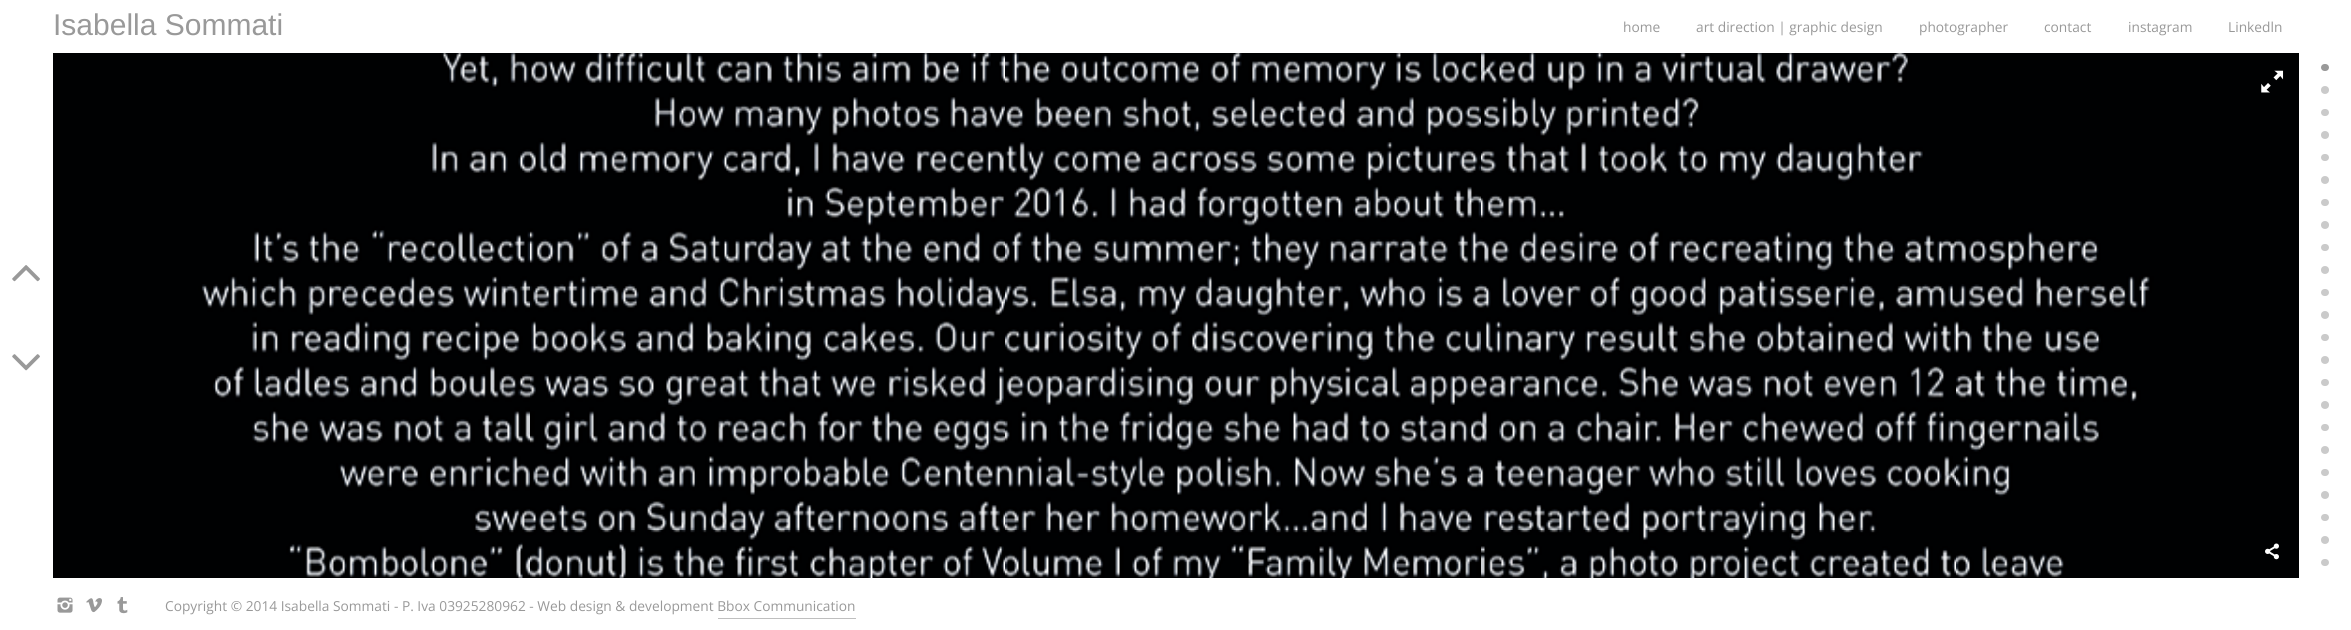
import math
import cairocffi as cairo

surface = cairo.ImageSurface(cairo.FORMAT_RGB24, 2351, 630)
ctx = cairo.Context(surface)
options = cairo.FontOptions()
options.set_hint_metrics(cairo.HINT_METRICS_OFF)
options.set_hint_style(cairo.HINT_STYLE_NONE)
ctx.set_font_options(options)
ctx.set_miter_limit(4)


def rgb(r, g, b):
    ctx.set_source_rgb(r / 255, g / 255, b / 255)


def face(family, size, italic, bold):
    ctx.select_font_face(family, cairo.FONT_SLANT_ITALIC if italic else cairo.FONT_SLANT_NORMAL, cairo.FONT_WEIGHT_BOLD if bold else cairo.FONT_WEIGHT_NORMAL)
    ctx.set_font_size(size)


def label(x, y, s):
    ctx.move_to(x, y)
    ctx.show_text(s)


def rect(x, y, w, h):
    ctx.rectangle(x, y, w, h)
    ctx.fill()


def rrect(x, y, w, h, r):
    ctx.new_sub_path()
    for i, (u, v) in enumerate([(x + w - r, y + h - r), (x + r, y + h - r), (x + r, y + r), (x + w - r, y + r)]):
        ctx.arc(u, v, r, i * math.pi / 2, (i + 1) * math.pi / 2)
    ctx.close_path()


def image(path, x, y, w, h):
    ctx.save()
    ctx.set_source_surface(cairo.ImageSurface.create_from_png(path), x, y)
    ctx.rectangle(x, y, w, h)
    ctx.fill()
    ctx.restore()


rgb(255, 255, 255)
ctx.paint()
face('Liberation Sans', 30, 0, 0)
rgb(153, 153, 153)
label(53, 35, 'Isabella Sommati')
face('Open Sans', 13.75, 0, 0)
label(1623, 32, 'home')
label(1696, 32, 'art direction | graphic design')
label(1919, 32, 'photographer')
label(2044, 32, 'contact')
label(2128, 32, 'instagram')
label(2228, 32, 'Linkedln')
image('image0.png', 53, 53, 2246, 525)
image('image1.png', 12, 265, 28, 17)
image('image2.png', 12, 354, 28, 17)
rrect(2321, 64, 8, 7, 3.5)
ctx.fill()
rgb(202, 202, 202)
ctx.arc(2325, 90, 4, 0, 2 * math.pi)
ctx.fill()
rrect(2321, 109, 8, 7, 3.5)
ctx.fill()
ctx.arc(2325, 135, 4, 0, 2 * math.pi)
ctx.fill()
rrect(2321, 154, 8, 7, 3.5)
ctx.fill()
ctx.arc(2325, 180, 4, 0, 2 * math.pi)
ctx.fill()
rrect(2321, 199, 8, 7, 3.5)
ctx.fill()
ctx.arc(2325, 225, 4, 0, 2 * math.pi)
ctx.fill()
rrect(2321, 244, 8, 7, 3.5)
ctx.fill()
ctx.arc(2325, 270, 4, 0, 2 * math.pi)
ctx.fill()
rrect(2321, 289, 8, 7, 3.5)
ctx.fill()
ctx.arc(2325, 315, 4, 0, 2 * math.pi)
ctx.fill()
rrect(2321, 334, 8, 7, 3.5)
ctx.fill()
ctx.arc(2325, 360, 4, 0, 2 * math.pi)
ctx.fill()
rrect(2321, 379, 8, 7, 3.5)
ctx.fill()
ctx.arc(2325, 405, 4, 0, 2 * math.pi)
ctx.fill()
rrect(2321, 424, 8, 7, 3.5)
ctx.fill()
ctx.arc(2325, 450, 4, 0, 2 * math.pi)
ctx.fill()
rrect(2321, 469, 8, 7, 3.5)
ctx.fill()
ctx.arc(2325, 495, 4, 0, 2 * math.pi)
ctx.fill()
rrect(2321, 514, 8, 7, 3.5)
ctx.fill()
ctx.arc(2325, 540, 4, 0, 2 * math.pi)
ctx.fill()
rrect(2321, 559, 8, 7, 3.5)
ctx.fill()
image('image3.png', 2261, 70, 23, 23)
image('image4.png', 2265, 543, 14, 17)
image('image5.png', 57, 597, 16, 16)
image('image6.png', 86, 598, 16, 15)
image('image7.png', 117, 597, 11, 17)
rgb(153, 153, 153)
label(165, 611, 'Copyright © 2014 Isabella Sommati - P. Iva 03925280962 - Web design & development Bbox Communication')
rgb(191, 191, 191)
rect(718, 618, 138, 1)
surface.write_to_png('render.png')
